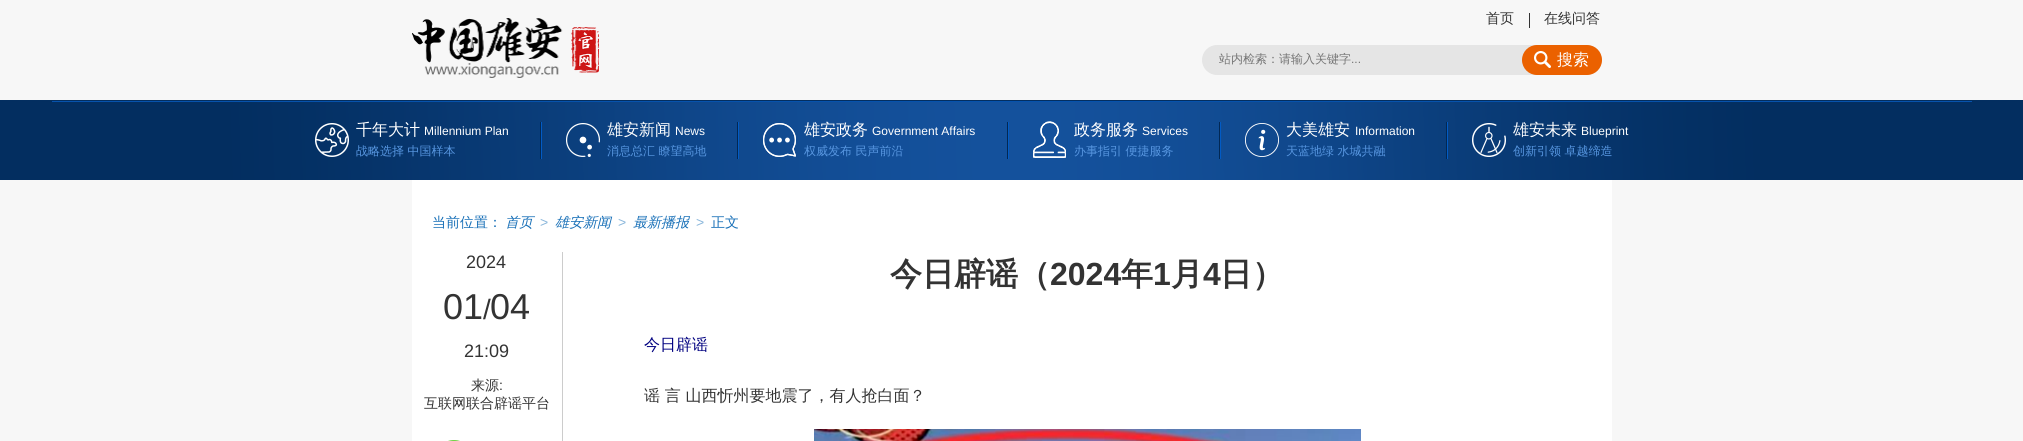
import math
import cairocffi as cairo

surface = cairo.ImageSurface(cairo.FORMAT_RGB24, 2023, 441)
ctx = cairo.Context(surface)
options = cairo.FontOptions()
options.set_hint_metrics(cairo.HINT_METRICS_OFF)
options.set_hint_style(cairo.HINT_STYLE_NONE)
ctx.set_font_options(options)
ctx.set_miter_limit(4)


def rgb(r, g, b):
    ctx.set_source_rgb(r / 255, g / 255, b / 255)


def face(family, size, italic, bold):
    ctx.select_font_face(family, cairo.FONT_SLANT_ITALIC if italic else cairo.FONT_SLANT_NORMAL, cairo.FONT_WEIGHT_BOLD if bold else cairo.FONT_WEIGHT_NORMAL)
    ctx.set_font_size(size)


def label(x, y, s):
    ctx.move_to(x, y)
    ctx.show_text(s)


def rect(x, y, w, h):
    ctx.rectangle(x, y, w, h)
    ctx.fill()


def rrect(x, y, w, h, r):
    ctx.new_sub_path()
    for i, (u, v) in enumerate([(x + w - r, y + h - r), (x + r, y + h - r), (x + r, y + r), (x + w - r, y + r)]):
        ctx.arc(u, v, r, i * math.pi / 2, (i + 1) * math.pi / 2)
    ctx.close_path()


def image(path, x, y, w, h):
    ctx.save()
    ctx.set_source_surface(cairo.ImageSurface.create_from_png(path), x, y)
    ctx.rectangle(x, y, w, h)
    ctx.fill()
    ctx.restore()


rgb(247, 247, 247)
ctx.paint()
image('image0.png', 412, 18, 187, 60)
face('WenQuanYi Zen Hei Medium', 14, 0, 0)
rgb(51, 51, 51)
label(1486, 23, '首页')
rect(1529, 13, 1, 15)
label(1544, 23, '在线问答')
rgb(229, 229, 229)
rrect(1202, 45, 400, 30, 15)
ctx.fill()
face('WenQuanYi Zen Hei Medium', 12, 0, 0)
rgb(117, 117, 117)
label(1219, 63, '站内检索：请输入关键字')
face('Liberation Sans', 12, 0, 0)
label(1351, 63, '...')
rgb(235, 97, 0)
rrect(1522, 45, 80, 30, 15)
ctx.fill()
image('image1.png', 1534, 51, 17, 17)
face('WenQuanYi Zen Hei Medium', 16, 0, 0)
rgb(255, 255, 255)
label(1557, 65, '搜索')
rgb(3, 46, 96)
rect(0, 100, 2023, 80)
image('image2.png', 52, 101, 1920, 79)
image('image3.png', 315, 123, 34, 34)
rgb(255, 255, 255)
label(356, 135, '千年大计')
face('Liberation Sans', 12, 0, 0)
label(424, 135, 'Millennium Plan')
face('WenQuanYi Zen Hei Medium', 12, 0, 0)
rgb(87, 150, 224)
label(356, 155, '战略选择 中国样本')
image('image4.png', 540, 122, 2, 37)
image('image5.png', 566, 123, 34, 34)
face('WenQuanYi Zen Hei Medium', 16, 0, 0)
rgb(255, 255, 255)
label(607, 135, '雄安新闻')
face('Liberation Sans', 12, 0, 0)
label(675, 135, 'News')
face('WenQuanYi Zen Hei Medium', 12, 0, 0)
rgb(87, 150, 224)
label(607, 155, '消息总汇 瞭望高地')
image('image4.png', 737, 122, 2, 37)
image('image6.png', 763, 123, 33, 34)
face('WenQuanYi Zen Hei Medium', 16, 0, 0)
rgb(255, 255, 255)
label(804, 135, '雄安政务')
face('Liberation Sans', 12, 0, 0)
label(872, 135, 'Government Affairs')
face('WenQuanYi Zen Hei Medium', 12, 0, 0)
rgb(87, 150, 224)
label(804, 155, '权威发布 民声前沿')
image('image4.png', 1007, 122, 2, 37)
image('image7.png', 1033, 121, 33, 37)
face('WenQuanYi Zen Hei Medium', 16, 0, 0)
rgb(255, 255, 255)
label(1074, 135, '政务服务')
face('Liberation Sans', 12, 0, 0)
label(1142, 135, 'Services')
face('WenQuanYi Zen Hei Medium', 12, 0, 0)
rgb(87, 150, 224)
label(1074, 155, '办事指引 便捷服务')
image('image4.png', 1219, 122, 2, 37)
image('image8.png', 1245, 123, 34, 34)
face('WenQuanYi Zen Hei Medium', 16, 0, 0)
rgb(255, 255, 255)
label(1286, 135, '大美雄安')
face('Liberation Sans', 12, 0, 0)
label(1355, 135, 'Information')
face('WenQuanYi Zen Hei Medium', 12, 0, 0)
rgb(87, 150, 224)
label(1286, 155, '天蓝地绿 水城共融')
image('image4.png', 1446, 122, 2, 37)
image('image9.png', 1472, 123, 34, 34)
face('WenQuanYi Zen Hei Medium', 16, 0, 0)
rgb(255, 255, 255)
label(1513, 135, '雄安未来')
face('Liberation Sans', 12, 0, 0)
label(1581, 135, 'Blueprint')
face('WenQuanYi Zen Hei Medium', 12, 0, 0)
rgb(87, 150, 224)
label(1513, 155, '创新引领 卓越缔造')
rgb(255, 255, 255)
rect(412, 180, 1200, 261)
face('WenQuanYi Zen Hei Medium', 14, 0, 0)
rgb(23, 111, 183)
label(432, 227, '当前位置：')
face('WenQuanYi Zen Hei Medium', 14, 1, 0)
label(505, 227, '首页')
face('Liberation Sans', 14, 0, 0)
rgb(139, 183, 219)
label(540, 227, '>')
face('WenQuanYi Zen Hei Medium', 14, 1, 0)
rgb(23, 111, 183)
label(555, 227, '雄安新闻')
face('Liberation Sans', 14, 0, 0)
rgb(139, 183, 219)
label(618, 227, '>')
face('WenQuanYi Zen Hei Medium', 14, 1, 0)
rgb(23, 111, 183)
label(633, 227, '最新播报')
face('Liberation Sans', 14, 0, 0)
rgb(139, 183, 219)
label(696, 227, '>')
face('WenQuanYi Zen Hei Medium', 14, 0, 0)
rgb(23, 111, 183)
label(711, 227, '正文')
face('Liberation Sans', 18, 0, 0)
rgb(51, 51, 51)
label(466, 268, '2024')
face('Liberation Sans', 36, 0, 0)
label(443, 319, '01')
face('Liberation Sans', 28, 0, 0)
label(483, 319, '/')
face('Liberation Sans', 36, 0, 0)
label(490, 319, '04')
face('Liberation Sans', 18, 0, 0)
label(464, 357, '21:09')
face('WenQuanYi Zen Hei Medium', 14, 0, 0)
label(471, 390, '来源')
face('Liberation Sans', 14, 0, 0)
label(499, 390, ':')
face('WenQuanYi Zen Hei Medium', 14, 0, 0)
label(424, 408, '互联网联合辟谣平台')
image('image10.png', 448, 440, 12, 1)
rgb(204, 204, 204)
rect(562, 252, 1, 189)
face('WenQuanYi Zen Hei', 32, 0, 1)
rgb(51, 51, 51)
label(890, 285, '今日辟谣（')
face('Liberation Sans', 32, 0, 1)
label(1050, 285, '2024')
face('WenQuanYi Zen Hei', 32, 0, 1)
label(1121, 285, '年')
face('Liberation Sans', 32, 0, 1)
label(1153, 285, '1')
face('WenQuanYi Zen Hei', 32, 0, 1)
label(1171, 285, '月')
face('Liberation Sans', 32, 0, 1)
label(1203, 285, '4')
face('WenQuanYi Zen Hei', 32, 0, 1)
label(1220, 285, '日）')
face('WenQuanYi Zen Hei Medium', 16, 0, 0)
rgb(0, 0, 128)
label(644, 350, '今日辟谣')
rgb(51, 51, 51)
label(644, 401, '谣 言 山西忻州要地震了，有人抢白面？')
image('image11.png', 814, 429, 547, 12)
surface.write_to_png('render.png')
